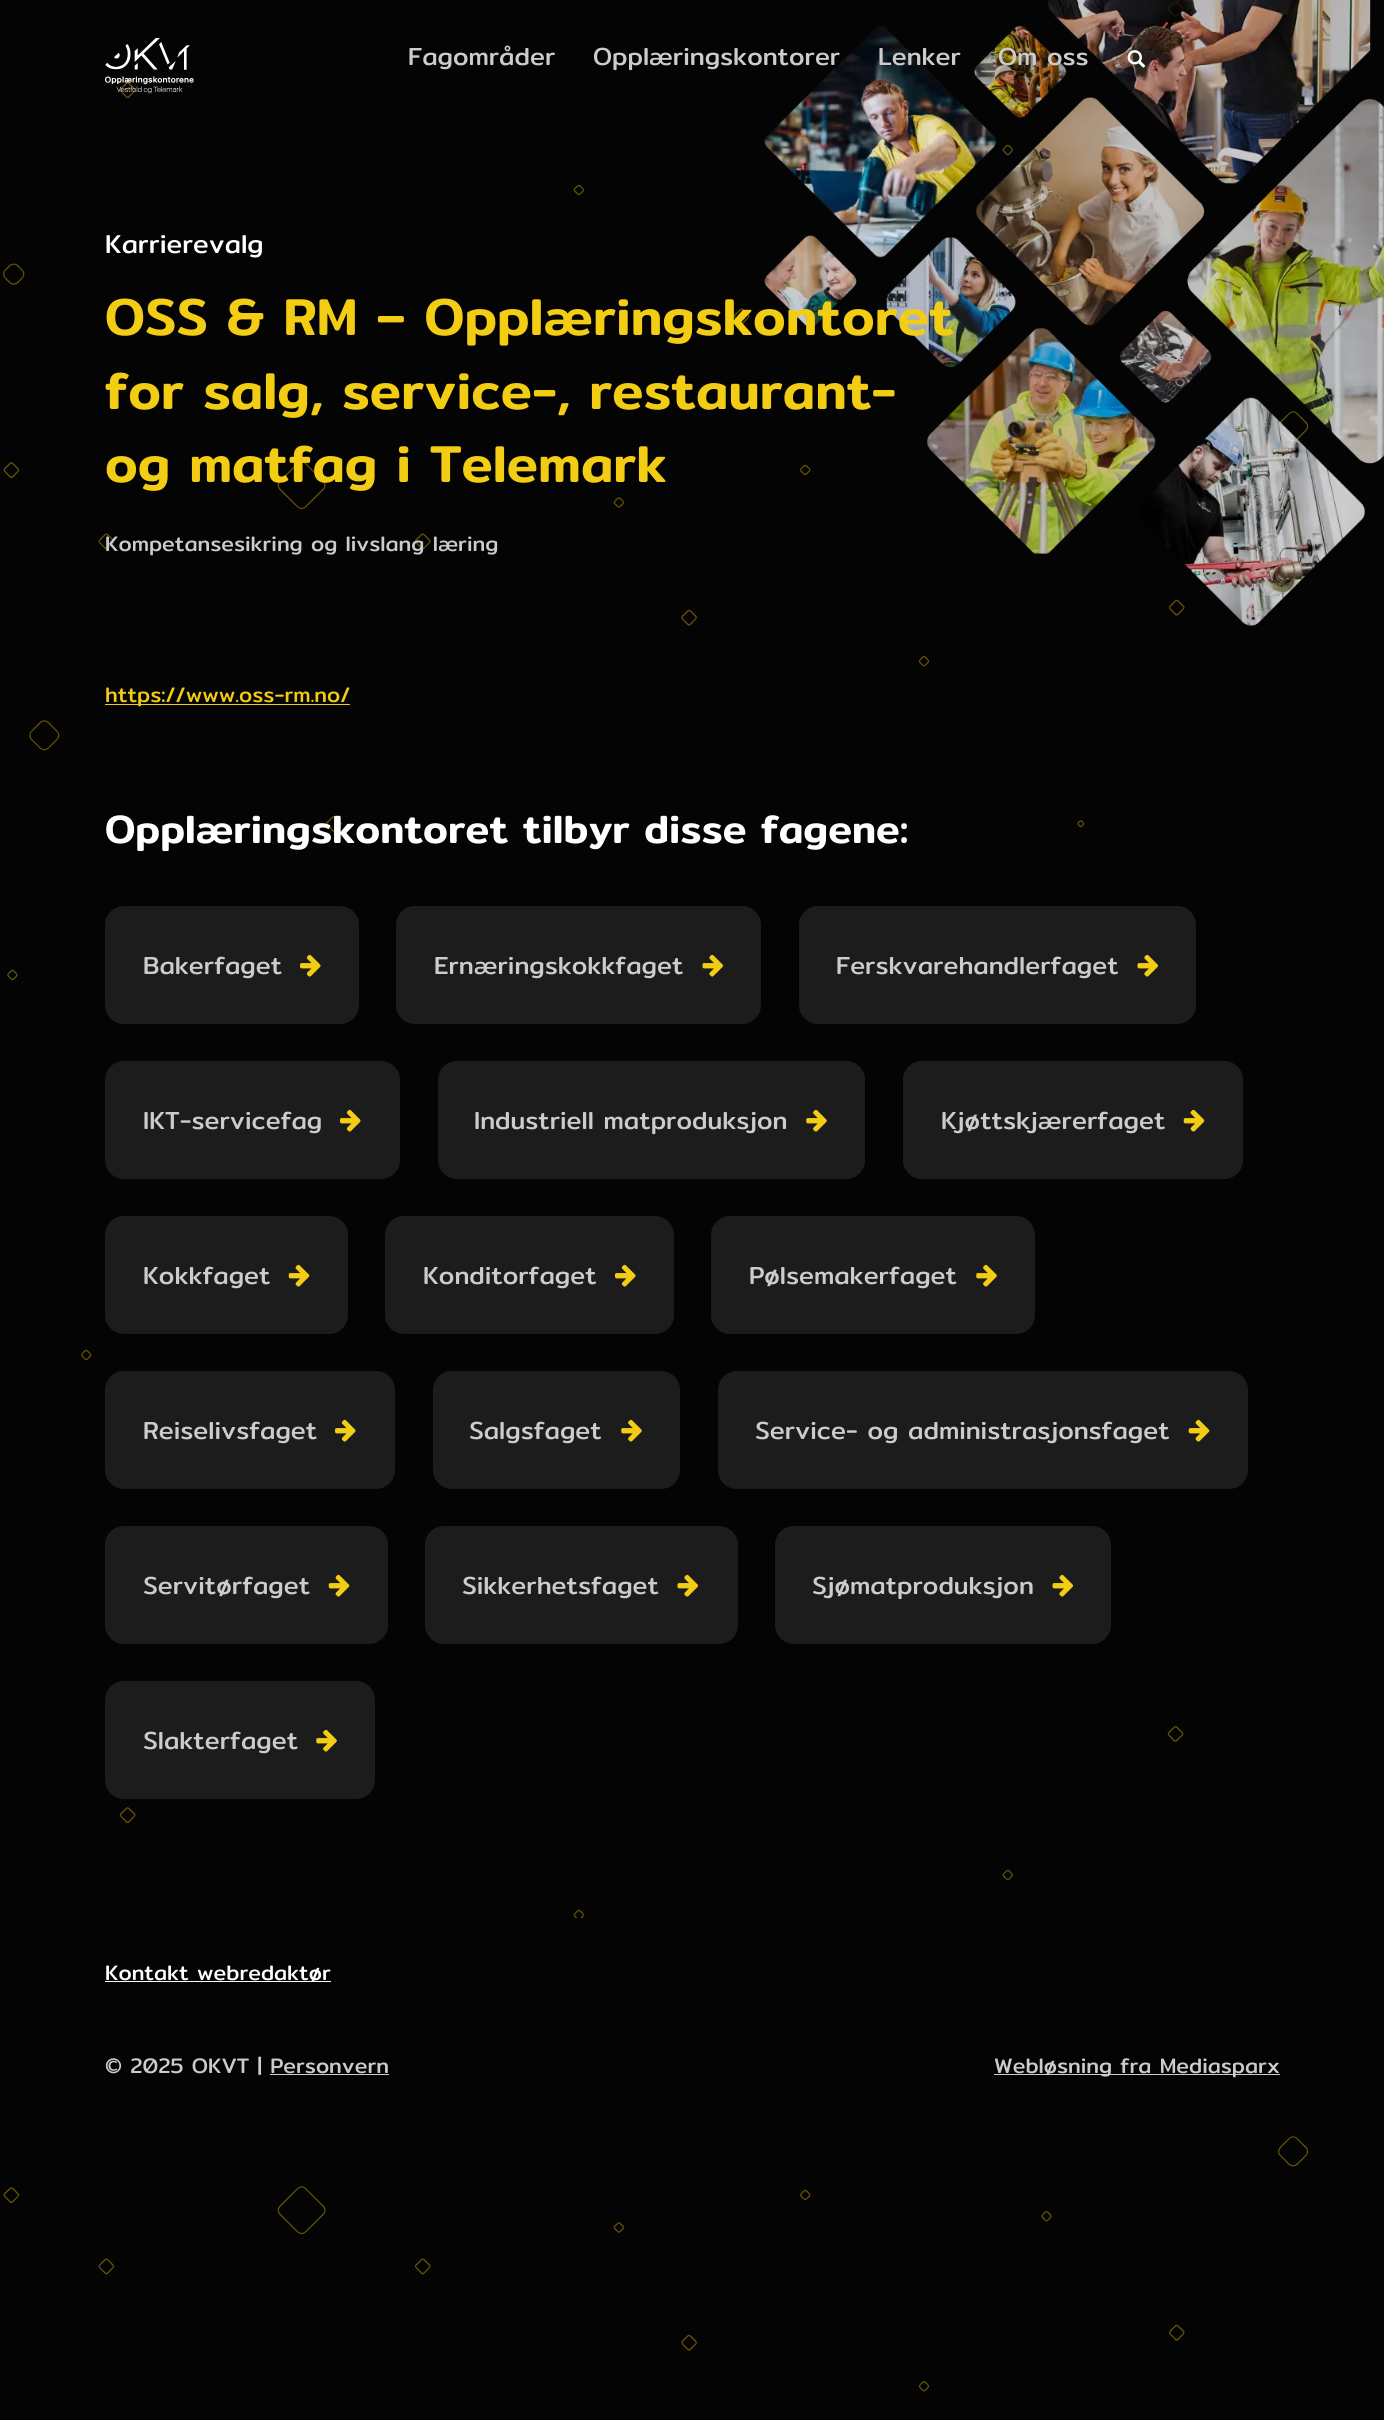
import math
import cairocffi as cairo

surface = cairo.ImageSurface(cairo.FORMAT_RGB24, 1384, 2420)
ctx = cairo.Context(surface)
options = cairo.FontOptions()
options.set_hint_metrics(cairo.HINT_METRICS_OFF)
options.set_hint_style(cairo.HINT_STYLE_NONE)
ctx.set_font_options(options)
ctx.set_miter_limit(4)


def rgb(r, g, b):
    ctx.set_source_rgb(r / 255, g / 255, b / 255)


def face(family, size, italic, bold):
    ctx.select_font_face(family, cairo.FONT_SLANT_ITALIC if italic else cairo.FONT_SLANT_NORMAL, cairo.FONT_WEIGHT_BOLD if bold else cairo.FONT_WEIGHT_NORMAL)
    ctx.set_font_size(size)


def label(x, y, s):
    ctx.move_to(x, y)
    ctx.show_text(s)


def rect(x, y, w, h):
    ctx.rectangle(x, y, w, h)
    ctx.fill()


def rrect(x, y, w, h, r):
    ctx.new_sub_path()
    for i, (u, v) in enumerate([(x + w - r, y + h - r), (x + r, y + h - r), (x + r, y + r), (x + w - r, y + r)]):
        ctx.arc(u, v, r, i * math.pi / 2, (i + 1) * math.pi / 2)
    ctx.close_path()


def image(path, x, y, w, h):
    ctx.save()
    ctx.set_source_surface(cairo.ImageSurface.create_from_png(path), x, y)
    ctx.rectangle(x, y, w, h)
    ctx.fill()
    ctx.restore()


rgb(4, 4, 4)
ctx.paint()
image('image0.png', 3, 1, 1306, 2391)
image('image1.png', 764, 0, 620, 626)
image('image2.png', 105, 38, 89, 56)
face('Mitr', 25, 0, 0)
rgb(204, 204, 204)
label(408, 65, 'Fagområder')
label(593, 65, 'Opplæringskontorer')
label(878, 65, 'Lenker')
label(998, 65, 'Om oss')
image('image3.png', 1127, 50, 19, 18)
face('Mitr', 26.25, 0, 0)
rgb(255, 255, 255)
label(105, 253, 'Karrierevalg')
face('Mitr Medium', 52.5, 0, 0)
rgb(243, 204, 20)
label(105, 335, 'OSS & RM – Opplæringskontoret')
label(105, 409, 'for salg, service-, restaurant-')
label(105, 482, 'og matfag i Telemark')
face('Mitr', 21.25, 0, 0)
rgb(204, 204, 204)
label(105, 551, 'Kompetansesikring og livslang læring')
rgb(243, 204, 20)
rect(105, 704, 245, 1)
label(105, 702, 'https://www.oss-rm.no/')
face('Mitr Medium', 40, 0, 0)
rgb(255, 255, 255)
label(105, 843, 'Opplæringskontoret tilbyr disse fagene:')
rgb(28, 28, 28)
rrect(105, 906, 254, 118, 19)
ctx.fill()
face('Mitr', 25, 0, 0)
rgb(204, 204, 204)
label(143, 974, 'Bakerfaget')
image('image4.png', 300, 954, 21, 23)
rgb(28, 28, 28)
rrect(396, 906, 365, 118, 19)
ctx.fill()
rgb(204, 204, 204)
label(434, 974, 'Ernæringskokkfaget')
image('image5.png', 702, 954, 21, 23)
rgb(28, 28, 28)
rrect(799, 906, 397, 118, 19)
ctx.fill()
rgb(204, 204, 204)
label(836, 974, 'Ferskvarehandlerfaget')
image('image5.png', 1137, 954, 21, 23)
rgb(28, 28, 28)
rrect(105, 1061, 295, 118, 19)
ctx.fill()
rgb(204, 204, 204)
label(143, 1129, 'IKT-servicefag')
image('image4.png', 340, 1109, 21, 23)
rgb(28, 28, 28)
rrect(438, 1061, 427, 118, 19)
ctx.fill()
rgb(204, 204, 204)
label(474, 1129, 'Industriell matproduksjon')
image('image6.png', 806, 1109, 21, 23)
rgb(28, 28, 28)
rrect(903, 1061, 340, 118, 19)
ctx.fill()
rgb(204, 204, 204)
label(941, 1129, 'Kjøttskjærerfaget')
image('image7.png', 1183, 1109, 22, 23)
rgb(28, 28, 28)
rrect(105, 1216, 243, 118, 19)
ctx.fill()
rgb(204, 204, 204)
label(143, 1284, 'Kokkfaget')
image('image7.png', 288, 1264, 22, 23)
rgb(28, 28, 28)
rrect(385, 1216, 289, 118, 19)
ctx.fill()
rgb(204, 204, 204)
label(423, 1284, 'Konditorfaget')
image('image4.png', 615, 1264, 21, 23)
rgb(28, 28, 28)
rrect(711, 1216, 324, 118, 19)
ctx.fill()
rgb(204, 204, 204)
label(749, 1284, 'Pølsemakerfaget')
image('image6.png', 976, 1264, 21, 23)
rgb(28, 28, 28)
rrect(105, 1371, 290, 118, 19)
ctx.fill()
rgb(204, 204, 204)
label(143, 1439, 'Reiselivsfaget')
image('image4.png', 335, 1419, 21, 23)
rgb(28, 28, 28)
rrect(433, 1371, 247, 118, 19)
ctx.fill()
rgb(204, 204, 204)
label(469, 1439, 'Salgsfaget')
image('image6.png', 621, 1419, 21, 23)
rgb(28, 28, 28)
rrect(718, 1371, 530, 118, 19)
ctx.fill()
rgb(204, 204, 204)
label(755, 1439, 'Service- og administrasjonsfaget')
image('image7.png', 1188, 1419, 22, 23)
rgb(28, 28, 28)
rrect(105, 1526, 283, 118, 19)
ctx.fill()
rgb(204, 204, 204)
label(143, 1594, 'Servitørfaget')
image('image7.png', 328, 1574, 22, 23)
rgb(28, 28, 28)
rrect(425, 1526, 313, 118, 19)
ctx.fill()
rgb(204, 204, 204)
label(462, 1594, 'Sikkerhetsfaget')
image('image5.png', 677, 1574, 21, 23)
rgb(28, 28, 28)
rrect(775, 1526, 336, 118, 19)
ctx.fill()
rgb(204, 204, 204)
label(812, 1594, 'Sjømatproduksjon')
image('image5.png', 1052, 1574, 21, 23)
rgb(28, 28, 28)
rrect(105, 1681, 270, 118, 19)
ctx.fill()
rgb(204, 204, 204)
label(143, 1749, 'Slakterfaget')
image('image6.png', 316, 1729, 21, 23)
rgb(4, 4, 4)
rect(3, 1918, 947, 162)
rgb(255, 255, 255)
rect(105, 1981, 226, 1)
face('Mitr', 21.25, 0, 0)
label(105, 1980, 'Kontakt webredaktør')
rgb(204, 204, 204)
label(105, 2073, '© 2025 OKVT | Personvern')
rect(270, 2074, 119, 1)
rect(994, 2074, 286, 1)
label(994, 2073, 'Webløsning fra Mediasparx')
surface.write_to_png('render.png')
